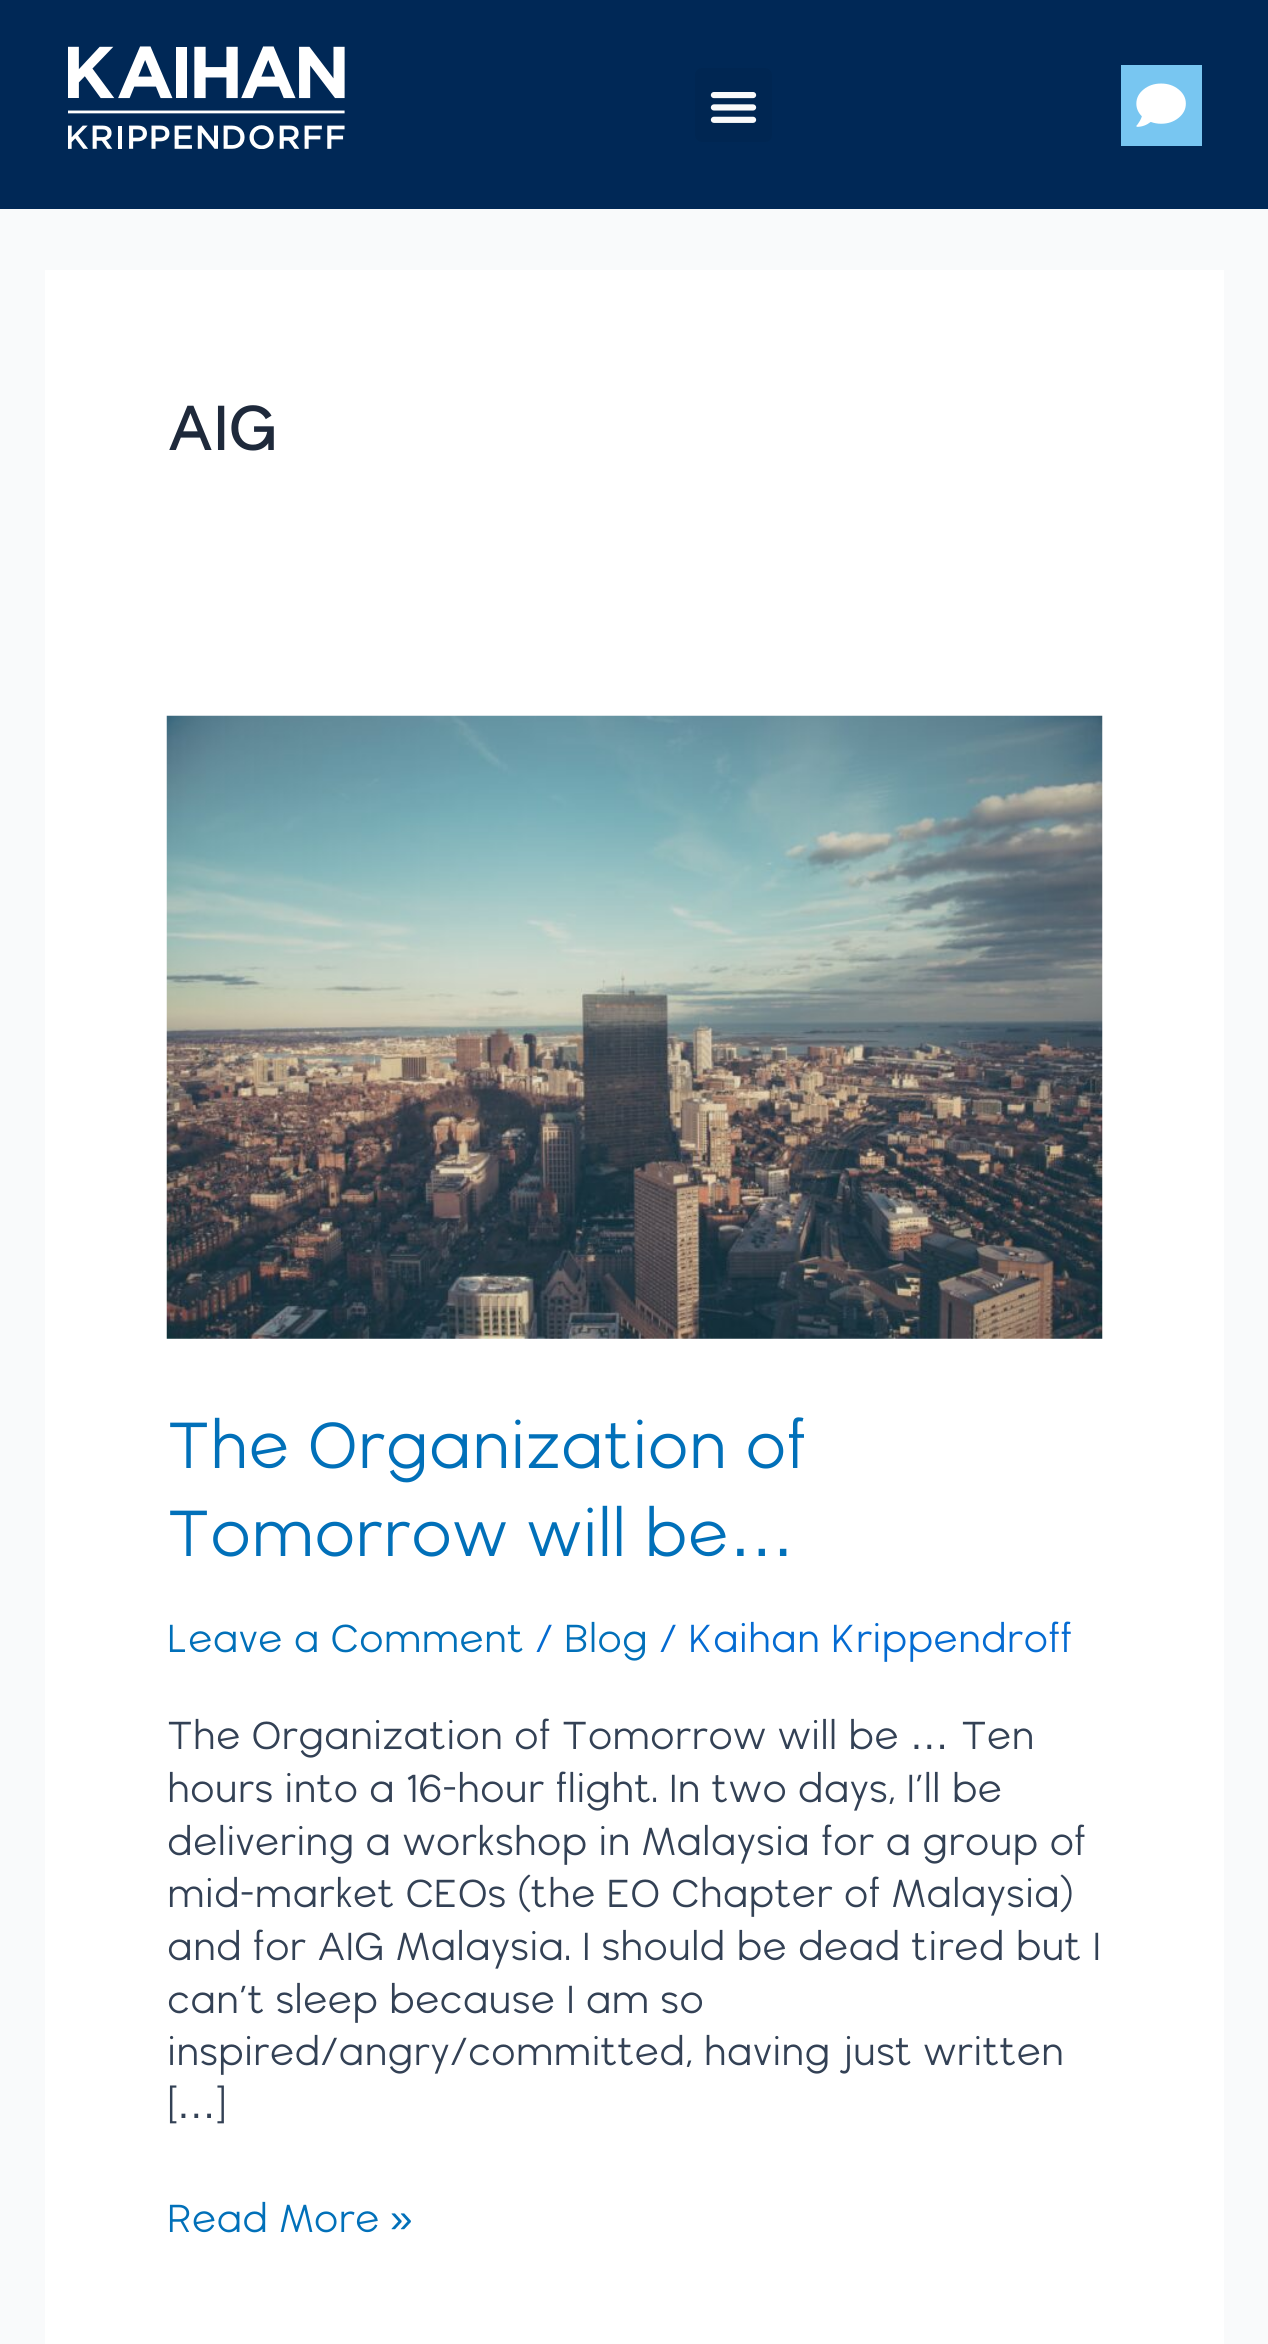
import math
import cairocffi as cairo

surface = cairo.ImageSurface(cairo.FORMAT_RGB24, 1268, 2344)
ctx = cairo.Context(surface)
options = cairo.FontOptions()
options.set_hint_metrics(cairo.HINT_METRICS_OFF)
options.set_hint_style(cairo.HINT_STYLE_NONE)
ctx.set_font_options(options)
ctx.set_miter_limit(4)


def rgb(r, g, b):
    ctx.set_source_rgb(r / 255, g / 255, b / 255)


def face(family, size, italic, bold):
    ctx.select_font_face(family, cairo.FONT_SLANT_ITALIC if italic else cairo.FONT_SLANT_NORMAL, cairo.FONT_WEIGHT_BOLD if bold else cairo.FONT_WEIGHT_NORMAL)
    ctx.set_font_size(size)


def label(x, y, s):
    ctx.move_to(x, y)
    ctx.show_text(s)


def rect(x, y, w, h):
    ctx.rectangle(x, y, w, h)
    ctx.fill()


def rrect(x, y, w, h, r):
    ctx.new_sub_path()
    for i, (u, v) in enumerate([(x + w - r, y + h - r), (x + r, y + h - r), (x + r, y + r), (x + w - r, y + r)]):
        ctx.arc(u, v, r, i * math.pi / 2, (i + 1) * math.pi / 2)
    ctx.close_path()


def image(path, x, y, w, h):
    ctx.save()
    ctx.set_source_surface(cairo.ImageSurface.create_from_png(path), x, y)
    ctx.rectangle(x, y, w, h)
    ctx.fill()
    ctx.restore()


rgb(249, 250, 251)
ctx.paint()
rgb(0, 40, 86)
rect(0, 0, 1268, 209)
image('image0.png', 68, 46, 277, 103)
rgb(0, 38, 82)
rrect(695, 68, 77, 74, 7)
ctx.fill()
image('image1.png', 710, 92, 47, 31)
rgb(120, 198, 241)
rect(1121, 65, 81, 81)
image('image2.png', 1136, 83, 50, 44)
rgb(255, 255, 255)
rect(45, 270, 1179, 2074)
face('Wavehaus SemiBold', 66, 0, 0)
rgb(30, 41, 59)
label(167, 450, 'AIG')
image('image3.png', 166, 715, 937, 624)
face('Wavehaus', 67.5, 0, 0)
rgb(1, 112, 185)
label(167, 1468, 'The Organization of')
label(167, 1556, 'Tomorrow will be')
face('Liberation Sans', 67.5, 0, 0)
label(728, 1556, '…')
face('Wavehaus', 40.5, 0, 0)
label(167, 1652, 'Leave a Comment')
rgb(4, 107, 210)
label(535, 1652, '/')
rgb(1, 112, 185)
label(564, 1652, 'Blog')
rgb(4, 107, 210)
label(659, 1652, '/ Kaihan Krippendroff')
rgb(51, 65, 85)
label(167, 1749, 'The Organization of Tomorrow will be')
face('Liberation Sans', 40.5, 0, 0)
label(909, 1749, '…')
face('Wavehaus', 40.5, 0, 0)
label(961, 1749, 'Ten')
label(167, 1802, 'hours into a 16-hour flight. In two days, I’ll be')
label(167, 1855, 'delivering a workshop in Malaysia for a group of')
label(167, 1907, 'mid-market CEOs (the EO Chapter of Malaysia)')
label(167, 1960, 'and for AIG Malaysia. I should be dead tired but I')
label(167, 2013, 'can’t sleep because I am so')
label(167, 2065, 'inspired/angry/committed, having just written')
label(167, 2118, '[')
face('Liberation Sans', 40.5, 0, 0)
label(176, 2118, '…')
face('Wavehaus', 40.5, 0, 0)
label(217, 2118, ']')
rgb(1, 112, 185)
label(167, 2232, 'Read More')
face('Liberation Sans', 40.5, 0, 0)
label(390, 2232, '»')
surface.write_to_png('render.png')
